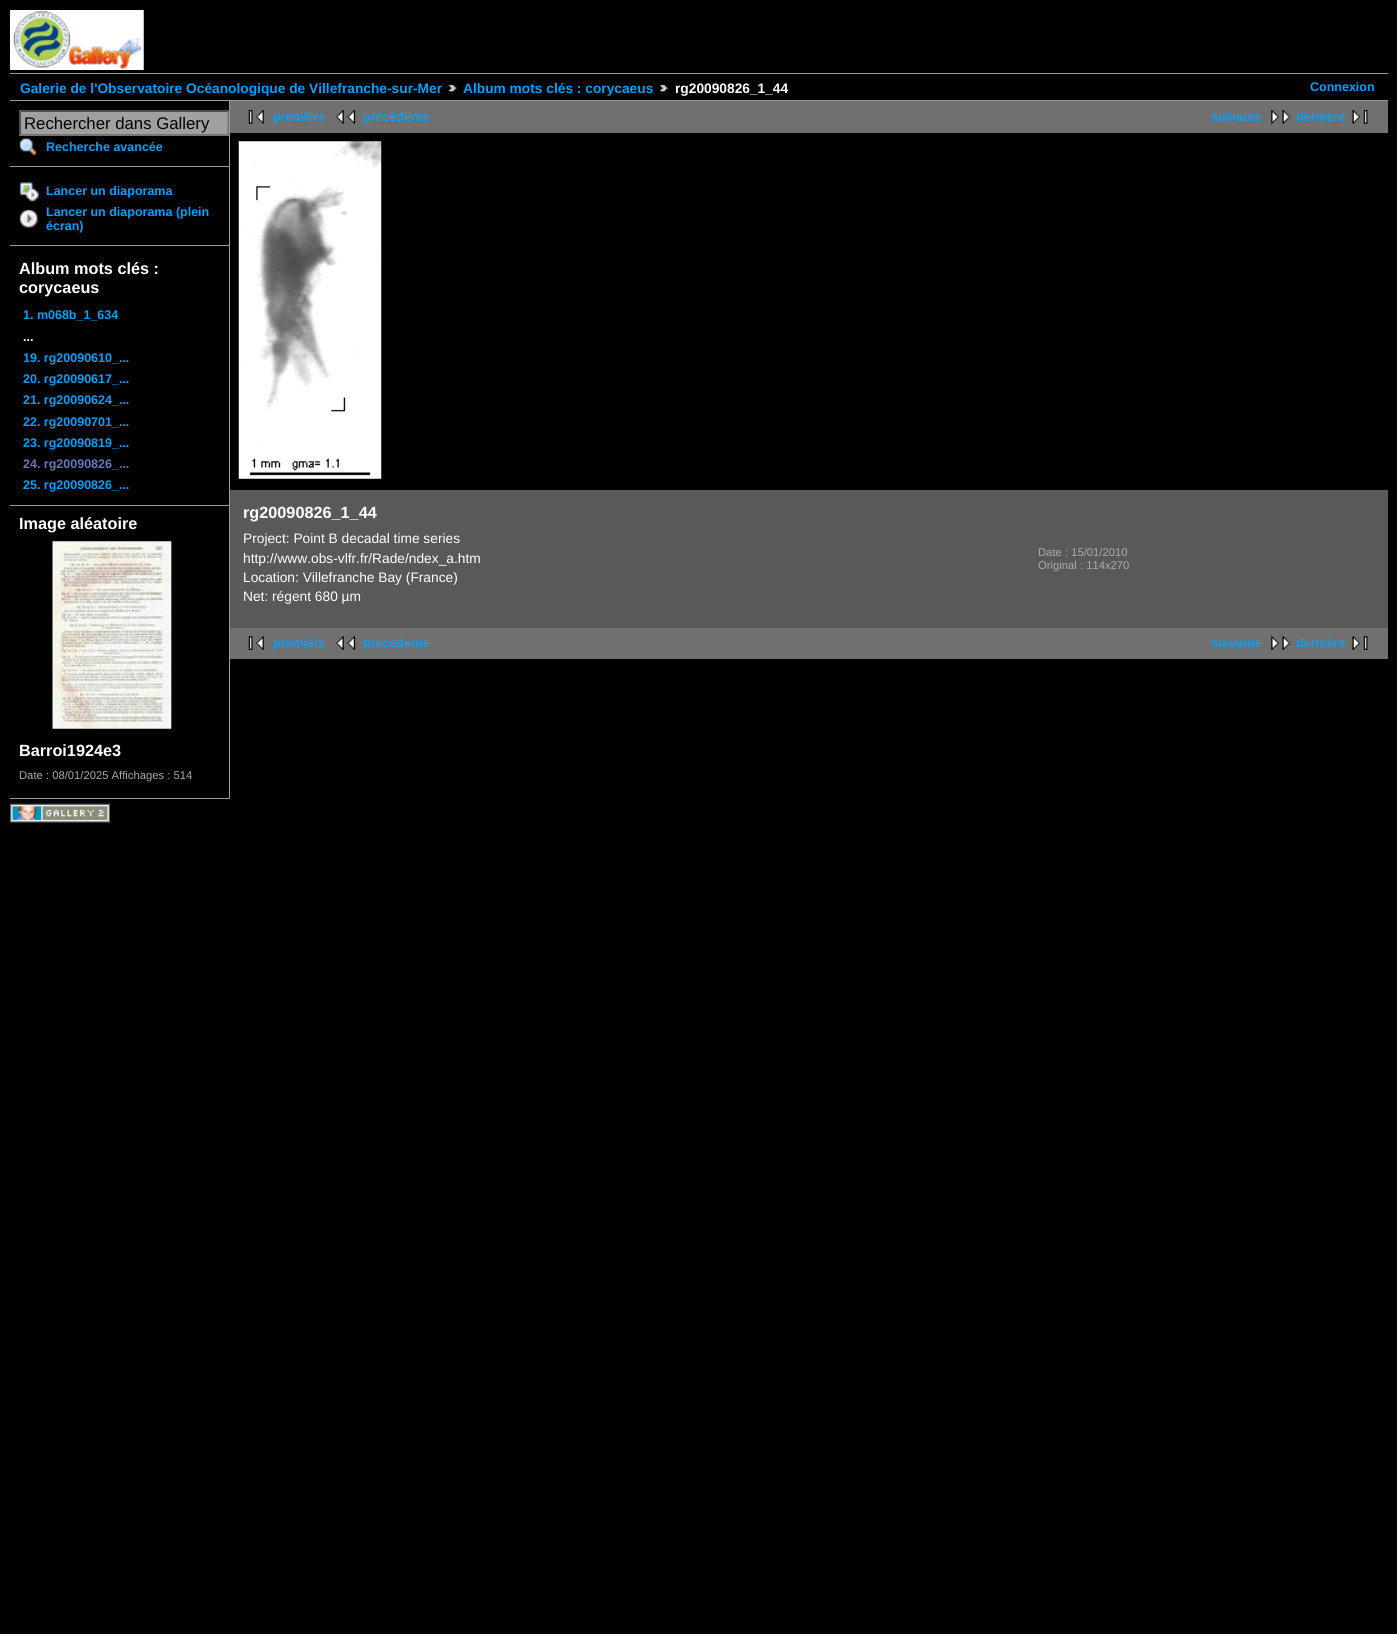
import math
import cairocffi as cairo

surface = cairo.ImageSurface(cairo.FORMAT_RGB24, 1397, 1634)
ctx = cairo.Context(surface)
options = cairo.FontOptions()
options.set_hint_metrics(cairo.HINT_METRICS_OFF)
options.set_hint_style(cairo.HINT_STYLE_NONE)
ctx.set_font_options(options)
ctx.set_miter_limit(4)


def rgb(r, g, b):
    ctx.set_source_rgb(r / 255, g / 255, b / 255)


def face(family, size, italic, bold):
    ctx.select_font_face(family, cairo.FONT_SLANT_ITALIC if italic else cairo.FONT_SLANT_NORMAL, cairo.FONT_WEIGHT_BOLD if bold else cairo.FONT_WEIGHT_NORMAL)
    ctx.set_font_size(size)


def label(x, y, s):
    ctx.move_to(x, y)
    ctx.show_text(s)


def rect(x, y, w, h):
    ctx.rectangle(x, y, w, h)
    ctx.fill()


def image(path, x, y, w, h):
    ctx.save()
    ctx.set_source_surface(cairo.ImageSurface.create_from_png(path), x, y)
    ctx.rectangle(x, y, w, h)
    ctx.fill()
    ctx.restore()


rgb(0, 0, 0)
ctx.paint()
image('image0.png', 10, 10, 134, 60)
rgb(153, 153, 153)
rect(10, 73, 1378, 1)
rect(10, 100, 1378, 1)
face('Liberation Sans', 13.75, 0, 1)
rgb(0, 160, 255)
label(20, 93, 'Galerie de l\'Observatoire Océanologique de Villefranche-sur-Mer')
image('image1.png', 448, 84, 9, 8)
label(463, 93, 'Album mots clés : corycaeus')
image('image2.png', 659, 84, 9, 8)
rgb(255, 255, 255)
label(675, 93, 'rg20090826_1_44')
face('Liberation Sans', 12.5, 0, 1)
rgb(0, 160, 255)
label(1310, 91, 'Connexion')
rgb(153, 153, 153)
rect(229, 101, 1, 698)
rect(10, 166, 219, 1)
rgb(160, 160, 160)
rect(19, 110, 210, 26)
rgb(79, 79, 79)
ctx.new_path()
ctx.move_to(19, 110)
ctx.line_to(230, 110)
ctx.line_to(228, 112)
ctx.line_to(21, 112)
ctx.close_path()
ctx.fill()
ctx.save()
ctx.rectangle(10, 101, 219, 698)
ctx.clip()
rgb(118, 118, 118)
ctx.new_path()
ctx.move_to(230, 110)
ctx.line_to(230, 136)
ctx.line_to(227.5, 134)
ctx.line_to(227.5, 112.5)
ctx.close_path()
ctx.fill()
ctx.restore()
rgb(118, 118, 118)
ctx.new_path()
ctx.move_to(230, 136)
ctx.line_to(19, 136)
ctx.line_to(21, 134)
ctx.line_to(228, 134)
ctx.close_path()
ctx.fill()
rgb(79, 79, 79)
ctx.new_path()
ctx.move_to(19, 136)
ctx.line_to(19, 110)
ctx.line_to(21, 112.5)
ctx.line_to(21, 134)
ctx.close_path()
ctx.fill()
face('Liberation Sans', 16.75, 0, 0)
rgb(0, 0, 0)
label(24, 129, 'Rechercher dans Gallery')
image('image3.png', 19, 138, 18, 19)
face('Liberation Sans', 12.5, 0, 1)
rgb(0, 160, 255)
label(46, 151, 'Recherche avancée')
rgb(153, 153, 153)
rect(10, 245, 219, 1)
image('image4.png', 19, 182, 20, 20)
rgb(0, 160, 255)
label(46, 195, 'Lancer un diaporama')
image('image5.png', 19, 209, 19, 19)
label(46, 216, 'Lancer un diaporama (plein')
label(46, 230, 'écran)')
rgb(153, 153, 153)
rect(10, 505, 219, 1)
face('Liberation Sans', 16.25, 0, 1)
rgb(255, 255, 255)
label(19, 274, 'Album mots clés :')
label(19, 293, 'corycaeus')
face('Liberation Sans', 12.5, 0, 1)
rgb(0, 160, 255)
label(23, 319, '1. m068b_1_634')
rgb(255, 255, 255)
label(23, 341, '...')
rgb(0, 160, 255)
label(23, 362, '19. rg20090610_...')
label(23, 383, '20. rg20090617_...')
label(23, 404, '21. rg20090624_...')
label(23, 426, '22. rg20090701_...')
label(23, 447, '23. rg20090819_...')
rgb(102, 119, 187)
label(23, 468, '24. rg20090826_...')
rgb(0, 160, 255)
label(23, 489, '25. rg20090826_...')
rgb(153, 153, 153)
rect(10, 798, 219, 1)
face('Liberation Sans', 16.25, 0, 1)
rgb(255, 255, 255)
label(19, 529, 'Image aléatoire')
image('image6.png', 49, 541, 123, 188)
label(19, 756, 'Barroi1924e3')
face('Liberation Sans', 11.25, 0, 0)
rgb(170, 170, 170)
label(19, 779, 'Date : 08/01/2025 Affichages : 514')
rgb(112, 112, 112)
rect(230, 101, 1158, 32)
image('image7.png', 248, 110, 16, 14)
face('Liberation Sans', 12.5, 0, 1)
rgb(0, 160, 255)
label(273, 121, 'première')
image('image8.png', 336, 110, 20, 14)
label(363, 121, 'précédente')
label(1211, 121, 'suivante')
image('image9.png', 1271, 110, 20, 14)
label(1296, 121, 'dernière')
image('image10.png', 1352, 110, 16, 14)
image('image11.png', 238, 141, 144, 338)
rgb(89, 89, 89)
rect(230, 490, 1158, 138)
face('Liberation Sans', 16.25, 0, 1)
rgb(255, 255, 255)
label(243, 518, 'rg20090826_1_44')
face('Liberation Sans', 13.75, 0, 0)
label(243, 543, 'Project: Point B decadal time series')
label(243, 563, 'http://www.obs-vlfr.fr/Rade/ndex_a.htm')
label(243, 582, 'Location: Villefranche Bay (France)')
label(243, 601, 'Net: régent 680 µm')
face('Liberation Sans', 11.25, 0, 0)
rgb(170, 170, 170)
label(1038, 556, 'Date : 15/01/2010')
label(1038, 569, 'Original : 114x270')
rgb(112, 112, 112)
rect(230, 628, 1158, 31)
image('image12.png', 248, 636, 16, 14)
face('Liberation Sans', 12.5, 0, 1)
rgb(0, 160, 255)
label(273, 647, 'première')
image('image13.png', 336, 636, 20, 14)
label(363, 647, 'précédente')
label(1211, 647, 'suivante')
image('image14.png', 1271, 636, 20, 14)
label(1296, 647, 'dernière')
image('image15.png', 1352, 636, 16, 14)
image('image16.png', 10, 803, 100, 20)
surface.write_to_png('render.png')
